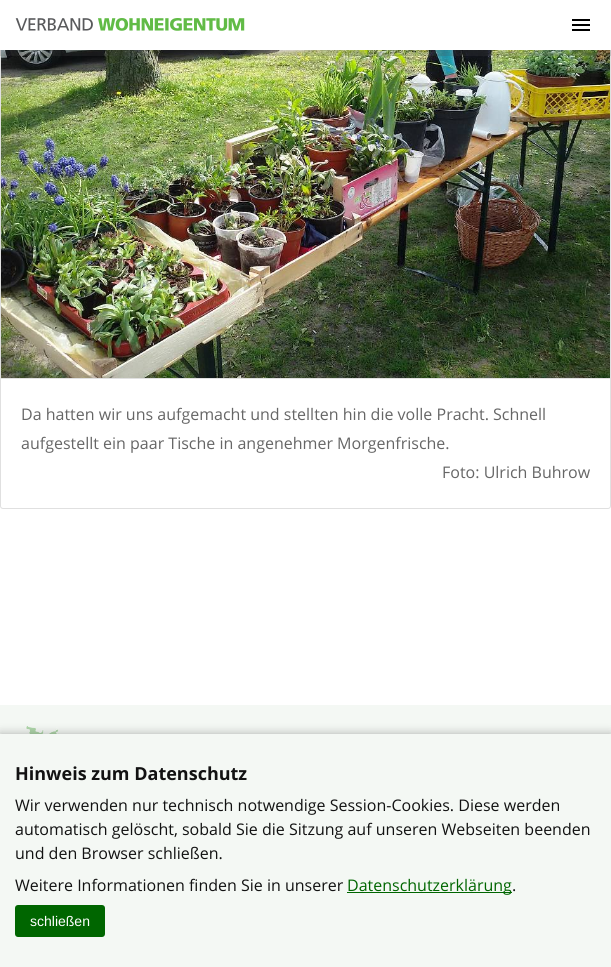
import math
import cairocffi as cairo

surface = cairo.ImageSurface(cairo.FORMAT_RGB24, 611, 967)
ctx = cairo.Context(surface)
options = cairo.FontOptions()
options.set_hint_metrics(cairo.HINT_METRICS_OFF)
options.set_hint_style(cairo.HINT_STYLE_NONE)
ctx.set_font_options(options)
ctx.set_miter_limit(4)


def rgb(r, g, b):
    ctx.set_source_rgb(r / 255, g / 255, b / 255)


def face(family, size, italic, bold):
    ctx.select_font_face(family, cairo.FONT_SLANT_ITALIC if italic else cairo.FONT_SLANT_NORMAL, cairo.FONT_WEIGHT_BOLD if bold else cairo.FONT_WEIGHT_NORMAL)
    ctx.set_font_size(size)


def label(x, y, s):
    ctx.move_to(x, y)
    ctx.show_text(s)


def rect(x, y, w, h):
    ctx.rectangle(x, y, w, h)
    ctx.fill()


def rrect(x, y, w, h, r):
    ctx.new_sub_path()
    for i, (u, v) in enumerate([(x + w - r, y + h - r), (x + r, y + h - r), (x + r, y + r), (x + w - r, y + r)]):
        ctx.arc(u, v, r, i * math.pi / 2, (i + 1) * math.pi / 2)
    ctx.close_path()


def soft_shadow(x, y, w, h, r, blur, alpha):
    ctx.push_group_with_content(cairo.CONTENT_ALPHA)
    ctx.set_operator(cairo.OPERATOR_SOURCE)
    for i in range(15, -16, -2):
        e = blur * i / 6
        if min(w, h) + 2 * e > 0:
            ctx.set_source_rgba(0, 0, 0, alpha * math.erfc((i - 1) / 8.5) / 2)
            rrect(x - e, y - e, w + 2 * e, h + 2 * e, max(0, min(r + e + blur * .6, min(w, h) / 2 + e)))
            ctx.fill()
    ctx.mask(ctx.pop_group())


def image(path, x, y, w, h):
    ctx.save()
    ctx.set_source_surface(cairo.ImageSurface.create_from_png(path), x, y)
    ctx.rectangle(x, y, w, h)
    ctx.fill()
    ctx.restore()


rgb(255, 255, 255)
ctx.paint()
rrect(0.5, -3.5, 610, 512, 2.5)
rgb(224, 224, 224)
ctx.set_line_width(1)
ctx.stroke()
image('image2.png', 1, 50, 609, 328)
ctx.set_source_rgba(0.302, 0.302, 0.302, 0.2)
rect(0, 50, 611, 6)
rgb(255, 255, 255)
rect(0, 0, 611, 50)
image('image0.png', 15, 18, 230, 13)
image('image1.png', 572, 19, 18, 12)
rgb(224, 224, 224)
rect(1, 378, 609, 1)
face('Open Sans', 16, 0, 0)
rgb(102, 102, 102)
label(21, 420, 'Da hatten wir uns aufgemacht und stellten hin die volle Pracht. Schnell')
label(21, 449, 'aufgestellt ein paar Tische in angenehmer Morgenfrische.')
label(442, 478, 'Foto: Ulrich Buhrow')
rgb(244, 248, 244)
rect(0, 705, 611, 29)
image('image3.png', 25, 726, 36, 8)
rgb(0, 0, 0)
soft_shadow(0, 734, 611, 233, 0, 5, 0.3)
rgb(244, 248, 244)
rect(0, 734, 611, 233)
face('Open Sans', 18, 0, 1)
rgb(18, 18, 18)
label(15, 780, 'Hinweis zum Datenschutz')
face('Open Sans', 16, 0, 0)
label(15, 811, 'Wir verwenden nur technisch notwendige Session-Cookies. Diese werden')
label(15, 835, 'automatisch gelöscht, sobald Sie die Sitzung auf unseren Webseiten beenden')
label(15, 859, 'und den Browser schließen.')
label(15, 891, 'Weitere Informationen finden Sie in unserer')
rgb(0, 102, 0)
rect(347, 892, 165, 1)
label(347, 891, 'Datenschutzerklärung')
rgb(18, 18, 18)
label(512, 891, '.')
rgb(0, 102, 0)
rrect(15, 905, 90, 32, 3)
ctx.fill()
face('Liberation Sans', 14, 0, 0)
rgb(255, 255, 255)
label(30, 926, 'schließen')
surface.write_to_png('render.png')
